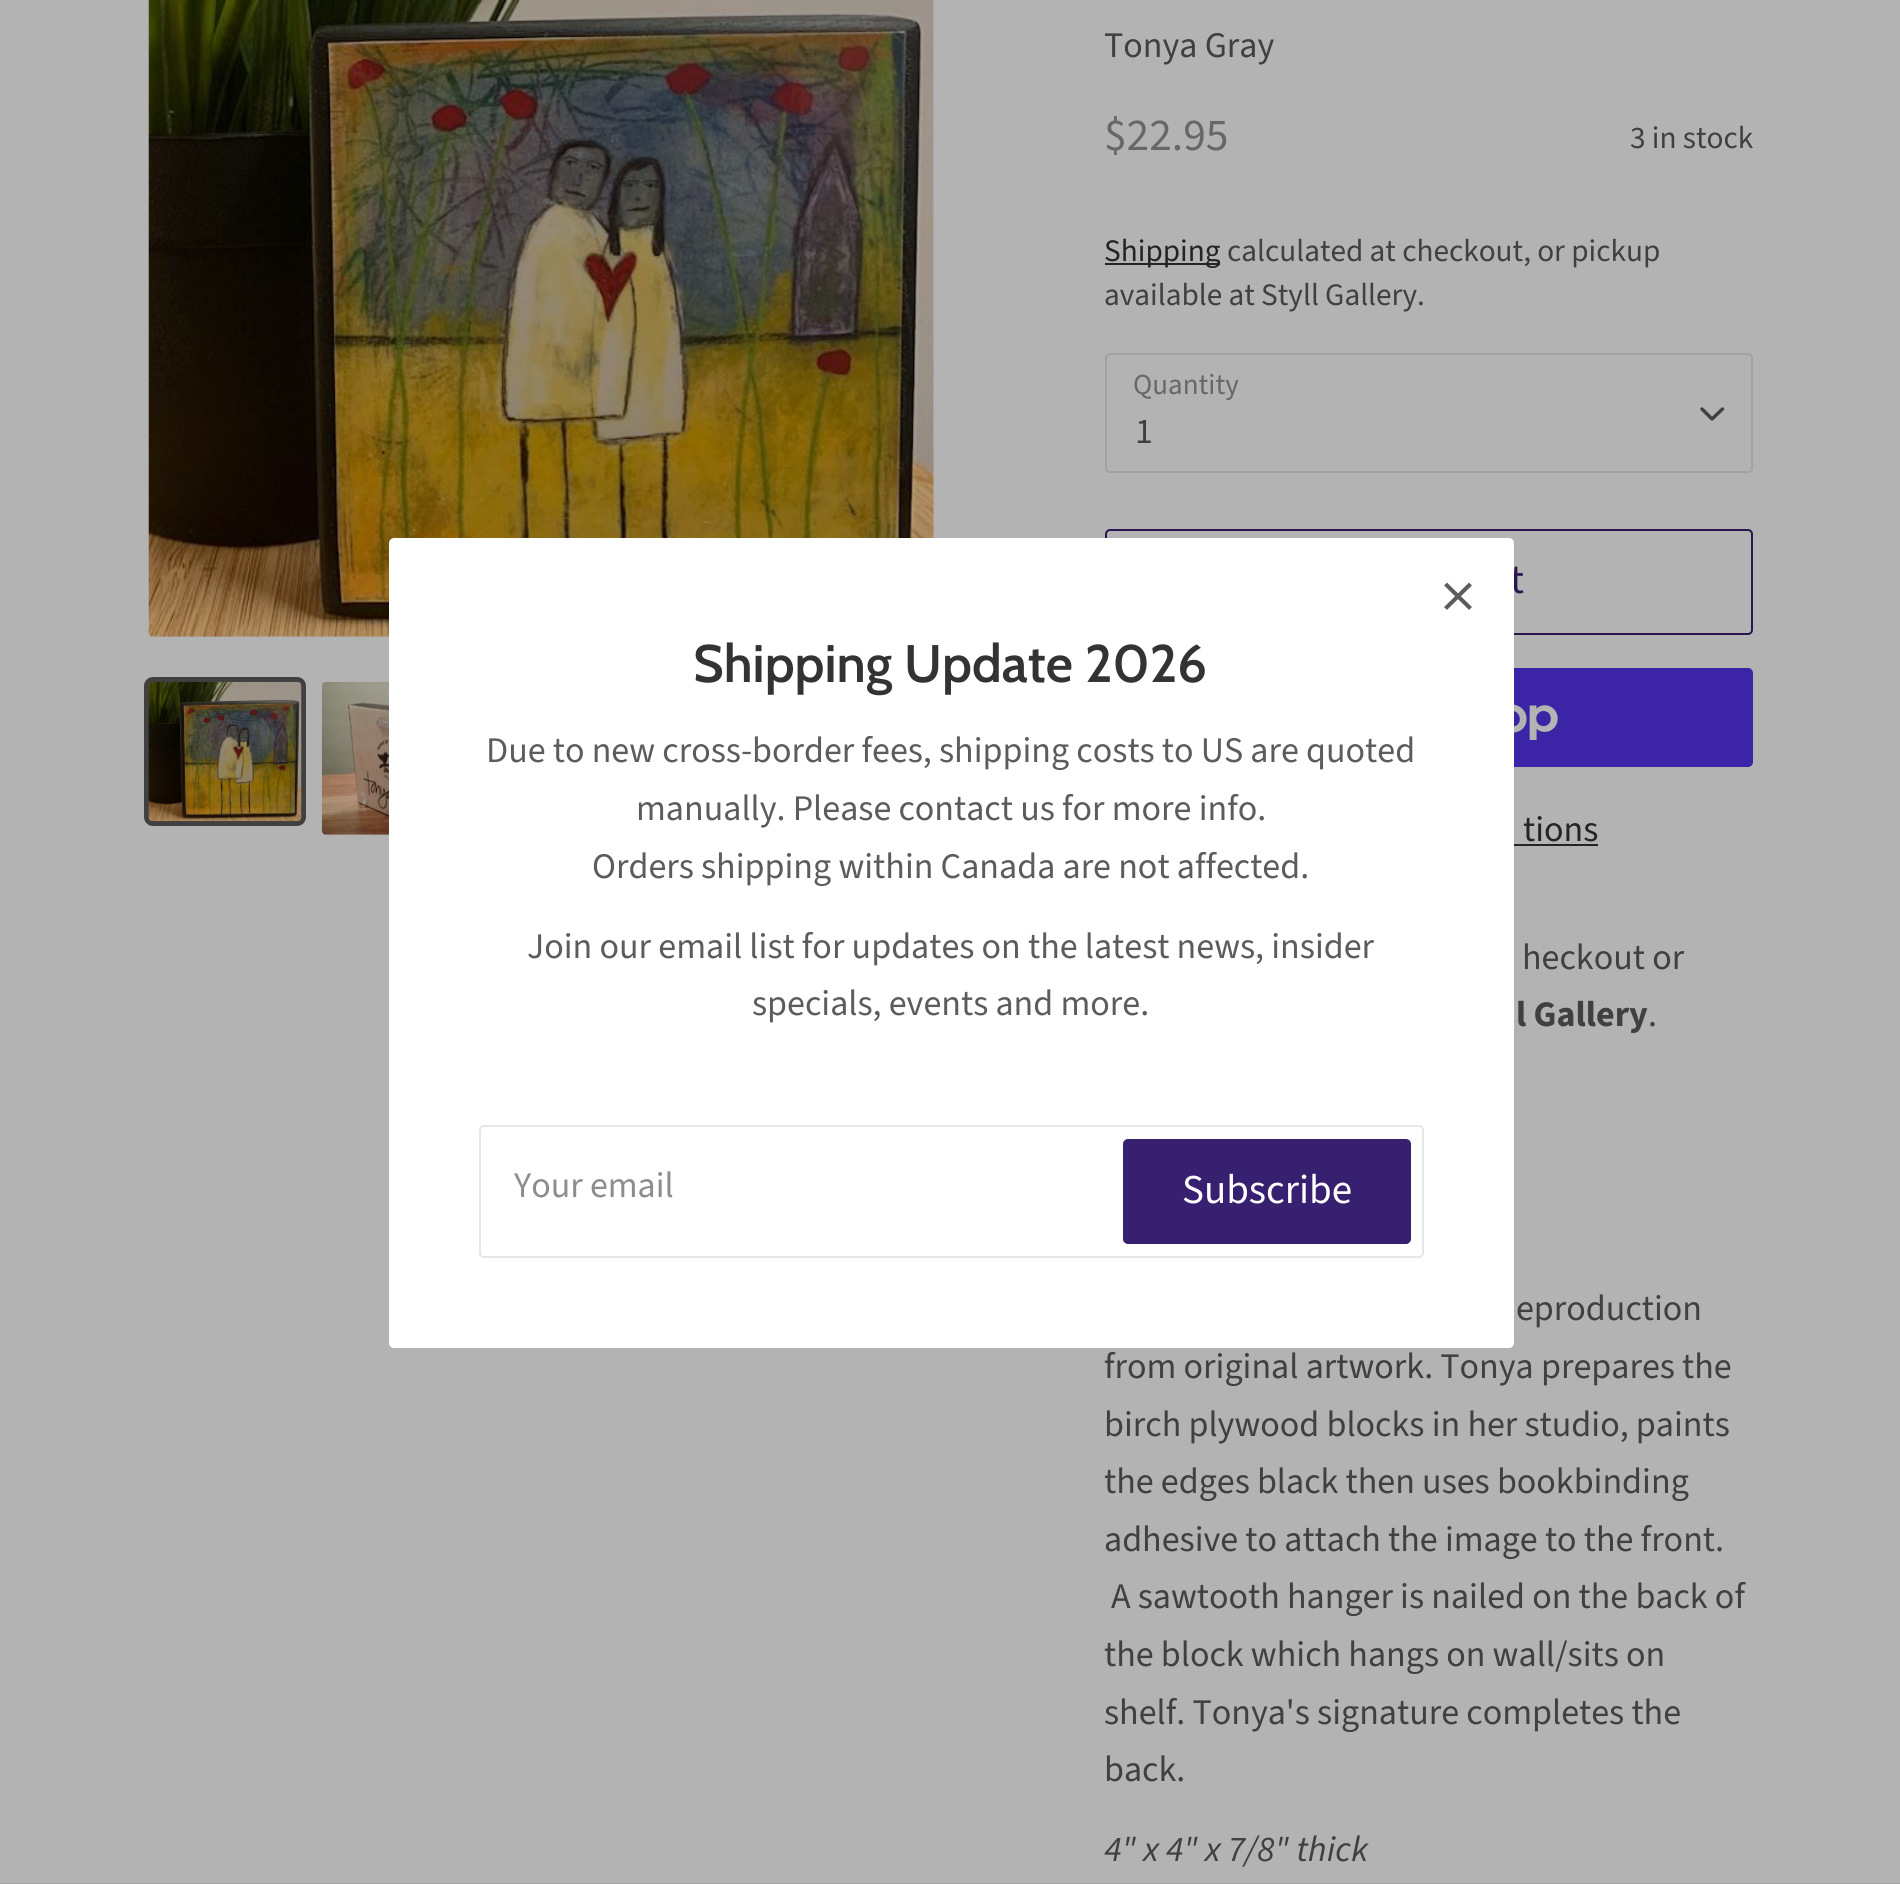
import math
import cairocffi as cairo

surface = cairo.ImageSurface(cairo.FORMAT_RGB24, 1900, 1884)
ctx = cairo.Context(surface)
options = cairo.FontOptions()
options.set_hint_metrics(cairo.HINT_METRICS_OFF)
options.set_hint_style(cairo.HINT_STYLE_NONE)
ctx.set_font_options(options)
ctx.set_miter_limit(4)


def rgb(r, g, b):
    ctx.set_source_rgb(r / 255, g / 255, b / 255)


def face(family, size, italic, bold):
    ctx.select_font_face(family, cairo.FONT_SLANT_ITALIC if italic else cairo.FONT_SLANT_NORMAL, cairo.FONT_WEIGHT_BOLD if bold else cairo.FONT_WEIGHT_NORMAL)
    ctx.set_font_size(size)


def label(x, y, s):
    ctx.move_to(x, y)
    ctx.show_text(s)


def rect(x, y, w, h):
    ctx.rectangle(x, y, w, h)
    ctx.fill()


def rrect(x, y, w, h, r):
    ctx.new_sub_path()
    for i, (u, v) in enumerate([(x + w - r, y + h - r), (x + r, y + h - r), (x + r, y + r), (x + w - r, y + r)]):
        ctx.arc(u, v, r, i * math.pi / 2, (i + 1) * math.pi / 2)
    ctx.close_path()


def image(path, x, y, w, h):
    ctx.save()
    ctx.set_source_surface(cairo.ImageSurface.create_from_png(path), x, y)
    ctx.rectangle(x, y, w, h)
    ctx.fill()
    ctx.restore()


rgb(179, 179, 179)
ctx.paint()
image('image0.png', 148, 0, 786, 637)
rrect(1106, 530, 646, 104, 4)
rgb(39, 22, 79)
ctx.stroke()
face('Source Sans Pro', 41, 0, 0)
label(1510, 593, 't')
rgb(59, 36, 165)
rrect(1105, 668, 648, 99, 5)
ctx.fill()
rgb(255, 255, 255)
rrect(389, 538, 1125, 810, 5)
ctx.fill()
ctx.new_path()
ctx.move_to(1470.5, 584)
ctx.line_to(1445.5, 608.5)
ctx.move_to(1445.5, 584)
ctx.line_to(1470.5, 608.5)
rgb(92, 92, 92)
ctx.set_line_width(4.1)
ctx.stroke()
face('Cabin SemiBold', 52.75, 0, 0)
rgb(51, 51, 51)
label(693, 682, 'Shipping Update 2026')
face('Source Sans Pro', 36, 0, 0)
rgb(92, 92, 92)
label(486, 762, 'Due to new cross-border fees, shipping costs to US are quoted')
label(636, 820, 'manually. Please contact us for more info.')
label(592, 878, 'Orders shipping within Canada are not affected.')
label(527, 958, 'Join our email list for updates on the latest news, insider')
label(752, 1015, 'specials, events and more.')
rrect(480, 1126, 943, 131, 4)
rgb(231, 231, 231)
ctx.set_line_width(2)
ctx.stroke()
rgb(141, 141, 141)
label(514, 1197, 'Your email')
rgb(56, 32, 113)
rrect(1124, 1140, 286, 103, 4)
ctx.fill_preserve()
ctx.stroke()
face('Source Sans Pro', 41, 0, 0)
rgb(255, 255, 255)
label(1182, 1203, 'Subscribe')
rrect(146.5, 679.5, 157, 144, 6.5)
rgb(64, 64, 64)
ctx.set_line_width(5)
ctx.stroke()
image('image1.png', 148, 681, 154, 141)
image('image2.png', 321, 681, 68, 154)
face('Source Sans Pro', 36, 0, 0)
label(1104, 57, 'Tonya Gray')
face('Source Sans Pro', 45.5, 0, 0)
rgb(103, 103, 103)
label(1104, 150, '$22.95')
face('Source Sans Pro', 31.25, 0, 0)
rgb(64, 64, 64)
label(1630, 148, '3 in stock')
rgb(36, 36, 36)
rect(1105, 263, 115, 2)
label(1104, 261, 'Shipping')
rgb(64, 64, 64)
label(1227, 261, 'calculated at checkout, or pickup')
label(1104, 305, 'available at Styll Gallery.')
face('Source Sans Pro', 29, 0, 0)
rgb(103, 103, 103)
label(1133, 394, 'Quantity')
rrect(1106, 354, 646, 118, 4)
rgb(162, 162, 162)
ctx.set_line_width(2)
ctx.stroke()
ctx.new_path()
ctx.move_to(1702, 409)
ctx.line_to(1712, 419)
ctx.line_to(1722.5, 409)
rgb(64, 64, 64)
ctx.set_line_width(3.4)
ctx.set_line_cap(cairo.LINE_CAP_ROUND)
ctx.set_line_join(cairo.LINE_JOIN_ROUND)
ctx.stroke()
face('Source Sans Pro', 36, 0, 0)
label(1135, 443, '1')
image('image3.png', 1514, 704, 44, 36)
rgb(36, 36, 36)
label(1523, 841, 'tions')
rect(1514, 844, 84, 2)
rgb(64, 64, 64)
label(1522, 969, 'heckout or')
face('Source Sans Pro', 36, 0, 1)
label(1516, 1026, 'l Gallery')
face('Source Sans Pro', 36, 0, 0)
label(1648, 1026, '.')
label(1516, 1320, 'eproduction')
label(1104, 1378, 'from original artwork. Tonya prepares the')
label(1104, 1436, 'birch plywood blocks in her studio, paints')
label(1104, 1493, 'the edges black then uses bookbinding')
label(1104, 1551, 'adhesive to attach the image to the front.')
label(1111, 1608, 'A sawtooth hanger is nailed on the back of')
label(1104, 1666, 'the block which hangs on wall/sits on')
label(1104, 1724, 'shelf. Tonya\'s signature completes the')
label(1104, 1781, 'back.')
face('Source Sans Pro', 36, 1, 0)
label(1104, 1861, '4" x 4" x 7/8" thick')
rgb(162, 162, 162)
rect(0, 1883, 1900, 1)
surface.write_to_png('render.png')
